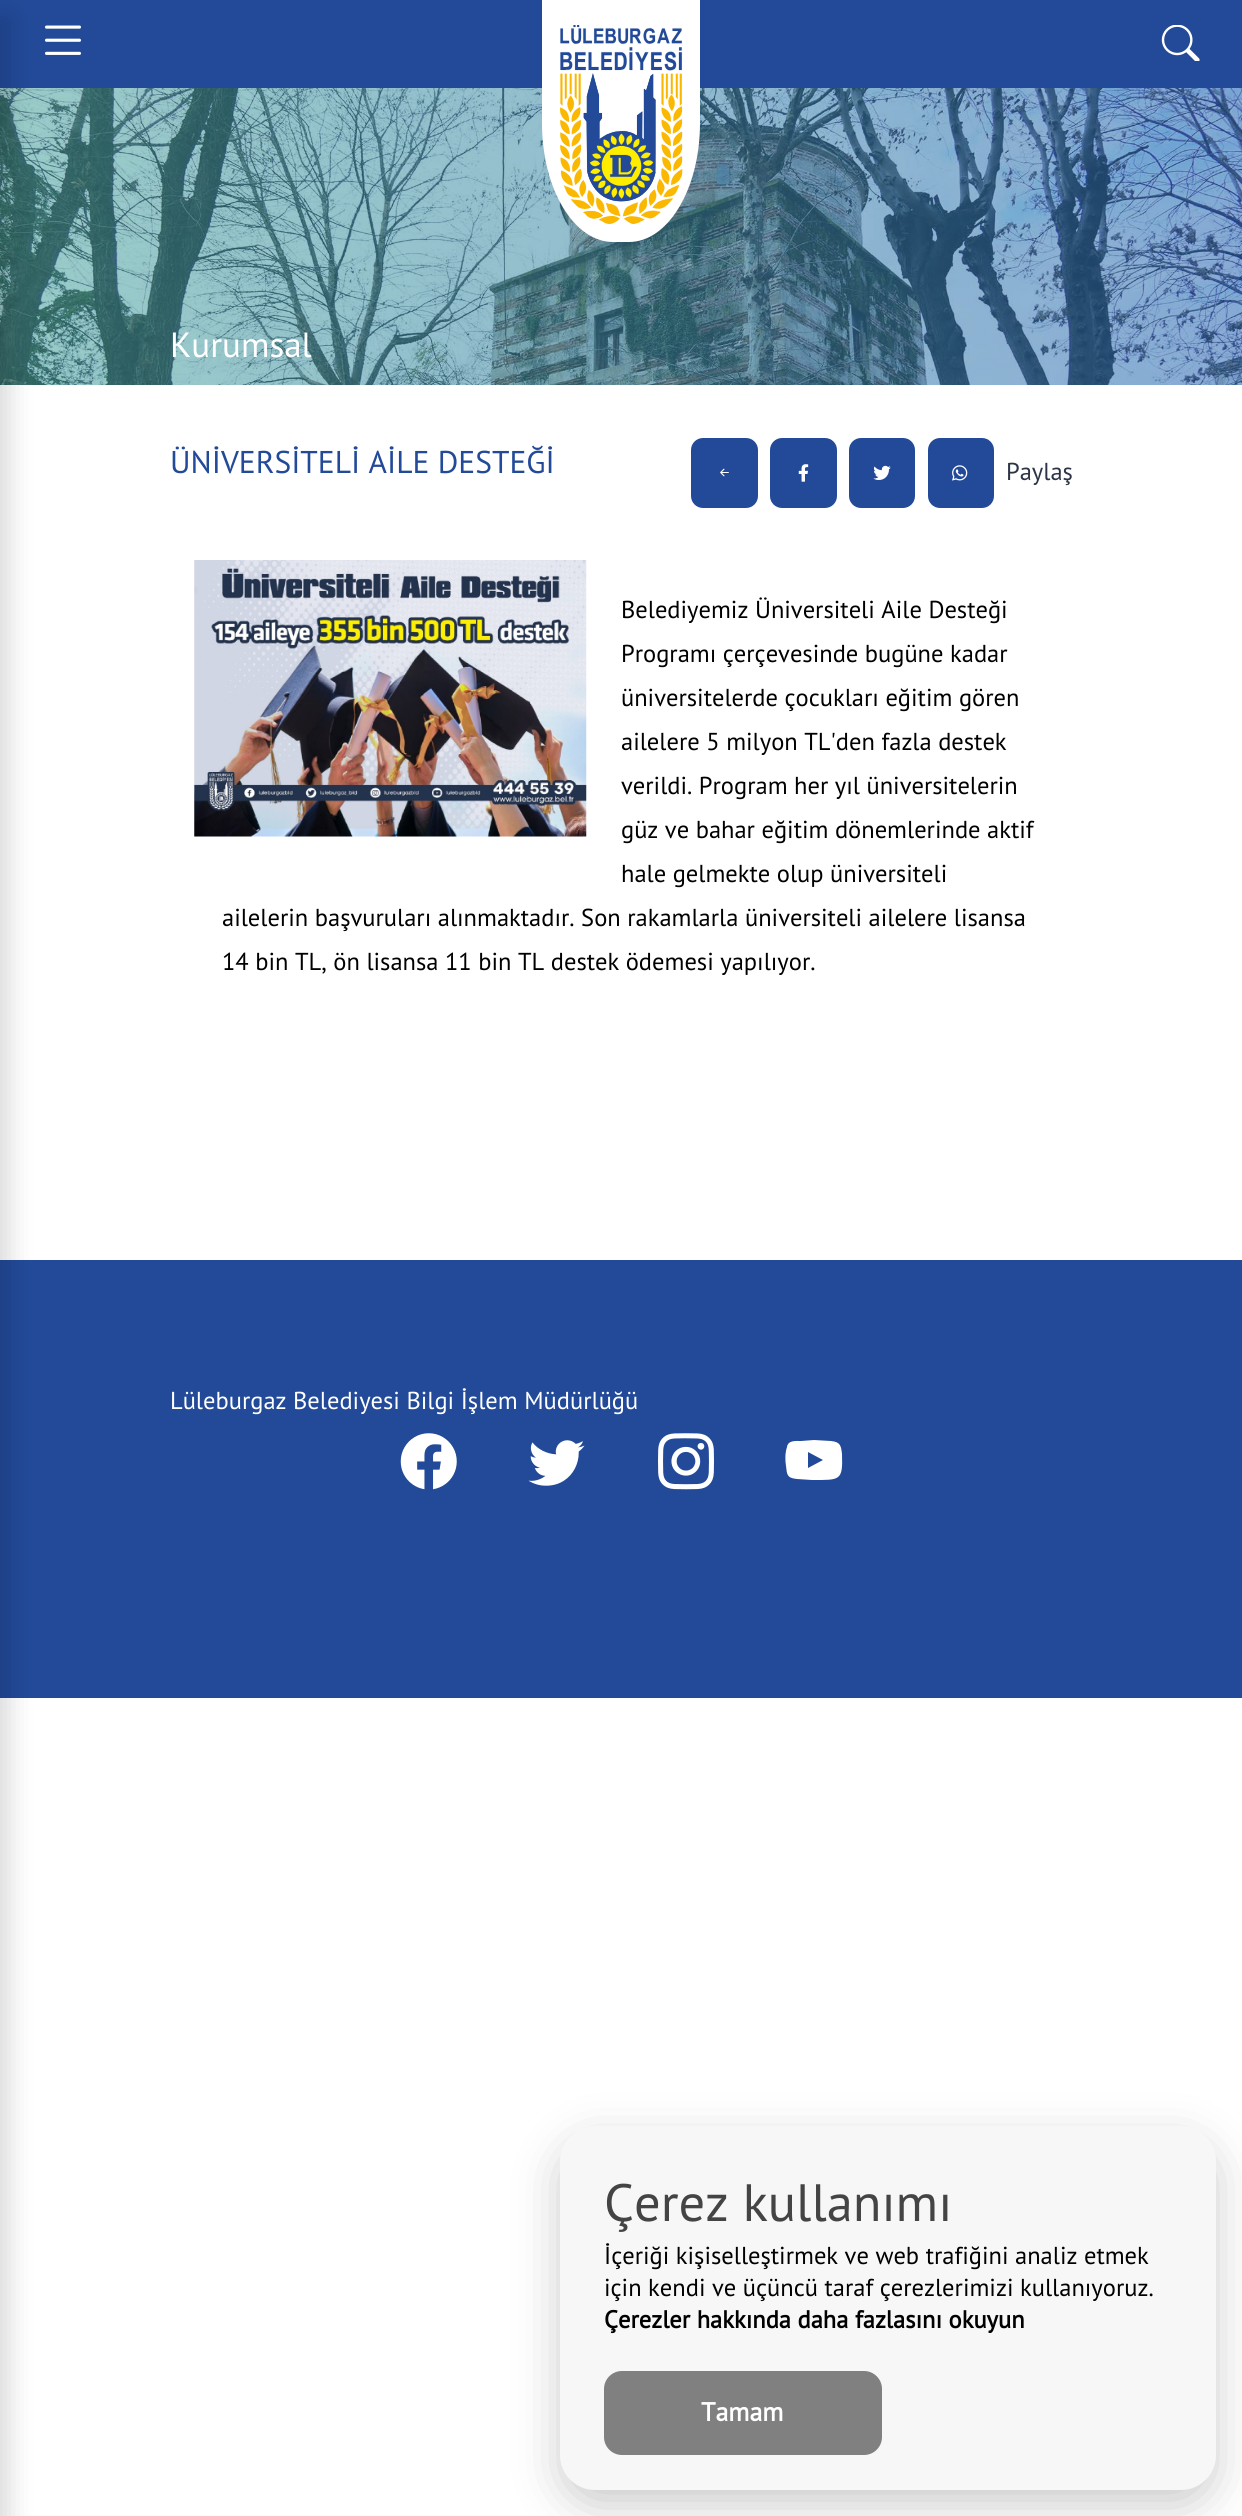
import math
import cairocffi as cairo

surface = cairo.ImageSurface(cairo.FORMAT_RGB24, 1242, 2516)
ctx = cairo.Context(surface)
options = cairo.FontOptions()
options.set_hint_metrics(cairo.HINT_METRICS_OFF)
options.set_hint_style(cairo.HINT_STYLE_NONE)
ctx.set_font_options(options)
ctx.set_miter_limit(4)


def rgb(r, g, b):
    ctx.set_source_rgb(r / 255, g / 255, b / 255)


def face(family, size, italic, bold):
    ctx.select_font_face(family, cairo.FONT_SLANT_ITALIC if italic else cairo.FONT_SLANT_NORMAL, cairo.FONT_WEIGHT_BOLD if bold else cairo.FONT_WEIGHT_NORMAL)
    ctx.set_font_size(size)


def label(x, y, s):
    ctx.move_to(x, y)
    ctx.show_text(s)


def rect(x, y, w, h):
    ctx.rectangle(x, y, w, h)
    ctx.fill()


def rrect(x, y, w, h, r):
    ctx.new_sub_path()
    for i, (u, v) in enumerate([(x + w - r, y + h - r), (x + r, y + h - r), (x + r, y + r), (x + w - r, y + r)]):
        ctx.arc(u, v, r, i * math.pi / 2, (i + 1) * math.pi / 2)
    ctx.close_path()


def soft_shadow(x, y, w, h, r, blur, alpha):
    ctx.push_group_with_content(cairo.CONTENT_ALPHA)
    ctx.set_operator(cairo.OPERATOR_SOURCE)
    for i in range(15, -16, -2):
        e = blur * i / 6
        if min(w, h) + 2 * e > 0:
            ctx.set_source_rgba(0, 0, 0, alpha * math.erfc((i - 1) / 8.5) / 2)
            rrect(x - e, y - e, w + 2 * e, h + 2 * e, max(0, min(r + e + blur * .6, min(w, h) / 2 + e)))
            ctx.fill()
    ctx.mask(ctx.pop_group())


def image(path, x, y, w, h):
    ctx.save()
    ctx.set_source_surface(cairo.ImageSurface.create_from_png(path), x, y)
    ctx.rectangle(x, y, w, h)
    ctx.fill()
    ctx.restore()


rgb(255, 255, 255)
ctx.paint()
rgb(34, 74, 152)
rect(0, 0, 1242, 88)
image('image0.png', 45, 25, 36, 30)
image('image3.png', 0, 88, 1242, 297)
rgb(255, 255, 255)
ctx.new_path()
ctx.move_to(542, -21)
ctx.line_to(700, -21)
ctx.line_to(700, 123)
ctx.curve_to(700, 189, 668, 242, 629, 242)
ctx.line_to(613, 242)
ctx.curve_to(574, 242, 542, 189, 542, 123)
ctx.close_path()
ctx.fill()
image('image1.png', 560, 25, 123, 199)
image('image2.png', 1161, 25, 39, 36)
rgb(34, 74, 152)
rect(0, 1260, 1242, 438)
rgb(0, 0, 0)
soft_shadow(-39, 18, 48, 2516, 0, 13, 0.15)
face('PT Sans', 35, 0, 0)
rgb(255, 255, 255)
label(170, 357, 'Kurumsal')
face('PT Sans', 31.5, 0, 0)
rgb(34, 74, 152)
label(170, 473, 'ÜNİVERSİTELİ AİLE DESTEĞİ')
rrect(691, 438, 67, 70, 12)
ctx.fill()
image('image4.png', 720, 468, 9, 9)
rrect(770, 438, 67, 70, 12)
ctx.fill()
image('image5.png', 798, 464, 11, 18)
rrect(849, 438, 66, 70, 12)
ctx.fill()
image('image6.png', 873, 465, 18, 16)
rrect(928, 438, 66, 70, 12)
ctx.fill()
image('image7.png', 952, 465, 16, 16)
face('PT Sans', 24.5, 0, 0)
rgb(44, 53, 70)
label(1006, 480, 'Paylaş')
image('image8.png', 194, 560, 393, 277)
rgb(0, 0, 0)
label(621, 618, 'Belediyemiz Üniversiteli Aile Desteği')
label(621, 662, 'Programı çerçevesinde bugüne kadar')
label(621, 706, 'üniversitelerde çocukları eğitim gören')
label(621, 750, 'ailelere 5 milyon TL\'den fazla destek')
label(621, 794, 'verildi. Program her yıl üniversitelerin')
label(621, 838, 'güz ve bahar eğitim dönemlerinde aktif')
label(621, 882, 'hale gelmekte olup üniversiteli')
label(222, 926, 'ailelerin başvuruları alınmaktadır. Son rakamlarla üniversiteli ailelere lisansa')
label(222, 970, '14 bin TL, ön lisansa 11 bin TL destek ödemesi yapılıyor.')
rgb(255, 255, 255)
label(170, 1409, 'Lüleburgaz Belediyesi Bilgi İşlem Müdürlüğü')
image('image9.png', 400, 1433, 57, 57)
image('image10.png', 528, 1440, 57, 46)
image('image11.png', 658, 1433, 56, 57)
ctx.new_path()
ctx.move_to(814, 1440)
ctx.line_to(831, 1441)
ctx.curve_to(840, 1442, 841, 1445, 842, 1454)
ctx.curve_to(843, 1481, 840, 1480, 812, 1480)
ctx.line_to(797, 1479)
ctx.curve_to(787, 1478, 787, 1475, 786, 1466)
ctx.curve_to(785, 1460, 785, 1453, 787, 1447)
ctx.curve_to(788, 1440, 796, 1441, 801, 1441)
ctx.close_path()
ctx.move_to(808, 1452)
ctx.line_to(808, 1468)
ctx.line_to(823, 1460)
ctx.close_path()
ctx.fill()
rgb(2, 2, 3)
soft_shadow(560, 2142, 656, 364, 35, 23, 0.2)
rgb(247, 247, 247)
rrect(560, 2126, 656, 364, 35)
ctx.fill()
face('PT Sans', 52.5, 0, 0)
rgb(68, 68, 68)
label(604, 2221, 'Çerez kullanımı')
face('PT Sans', 24.5, 0, 0)
rgb(0, 0, 0)
label(604, 2264, 'İçeriği kişiselleştirmek ve web trafiğini analiz etmek')
label(604, 2296, 'için kendi ve üçüncü taraf çerezlerimizi kullanıyoruz.')
face('PT Sans', 24.5, 0, 1)
label(604, 2328, 'Çerezler hakkında daha fazlasını okuyun')
rgb(128, 128, 128)
rrect(604, 2371, 278, 84, 18)
ctx.fill()
face('PT Sans', 26, 0, 1)
rgb(255, 255, 255)
label(701, 2421, 'Tamam')
surface.write_to_png('render.png')
